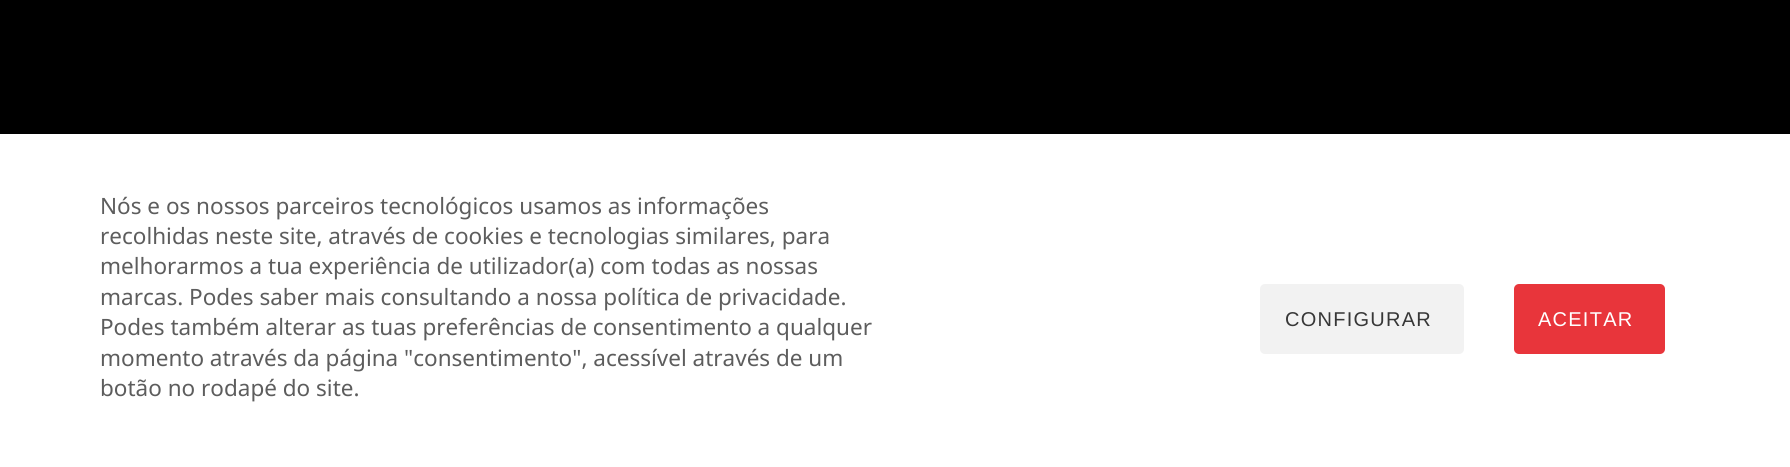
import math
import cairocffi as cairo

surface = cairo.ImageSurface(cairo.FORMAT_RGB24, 1790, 467)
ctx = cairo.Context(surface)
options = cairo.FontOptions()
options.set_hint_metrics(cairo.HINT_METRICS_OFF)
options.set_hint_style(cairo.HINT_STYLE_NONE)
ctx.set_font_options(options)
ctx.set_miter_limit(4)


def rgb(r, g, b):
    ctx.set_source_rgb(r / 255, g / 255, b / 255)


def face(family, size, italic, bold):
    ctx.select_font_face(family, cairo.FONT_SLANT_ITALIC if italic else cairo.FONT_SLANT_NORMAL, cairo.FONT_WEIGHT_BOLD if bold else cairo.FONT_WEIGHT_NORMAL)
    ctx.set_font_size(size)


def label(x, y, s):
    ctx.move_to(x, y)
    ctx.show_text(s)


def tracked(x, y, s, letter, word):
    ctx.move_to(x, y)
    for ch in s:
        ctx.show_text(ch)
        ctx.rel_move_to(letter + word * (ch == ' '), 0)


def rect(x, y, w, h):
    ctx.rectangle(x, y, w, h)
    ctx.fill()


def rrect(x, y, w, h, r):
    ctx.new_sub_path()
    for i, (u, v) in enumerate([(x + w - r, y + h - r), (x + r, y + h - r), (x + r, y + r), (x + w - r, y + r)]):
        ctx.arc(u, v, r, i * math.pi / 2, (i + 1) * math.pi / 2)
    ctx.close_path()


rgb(0, 0, 0)
ctx.paint()
rgb(255, 255, 255)
rect(0, 134, 1790, 333)
face('Noto Sans', 22.5, 0, 0)
rgb(93, 93, 93)
label(100, 214, 'Nós e os nossos parceiros tecnológicos usamos as informações')
label(100, 244, 'recolhidas neste site, através de cookies e tecnologias similares, para')
label(100, 274, 'melhorarmos a tua experiência de utilizador(a) com todas as nossas')
label(100, 305, 'marcas. Podes saber mais consultando a nossa política de privacidade.')
label(100, 335, 'Podes também alterar as tuas preferências de consentimento a qualquer')
label(100, 366, 'momento através da página "consentimento", acessível através de um')
label(100, 396, 'botão no rodapé do site.')
rgb(242, 242, 242)
rrect(1260, 284, 204, 70, 5)
ctx.fill()
face('Liberation Sans', 20, 0, 0)
rgb(55, 55, 55)
tracked(1285, 326, 'CONFIGURAR', 1.25, 0)
rgb(232, 53, 59)
rrect(1514, 284, 151, 70, 5)
ctx.fill()
rgb(255, 255, 255)
tracked(1538, 326, 'ACEITAR', 1.25, 0)
surface.write_to_png('render.png')
